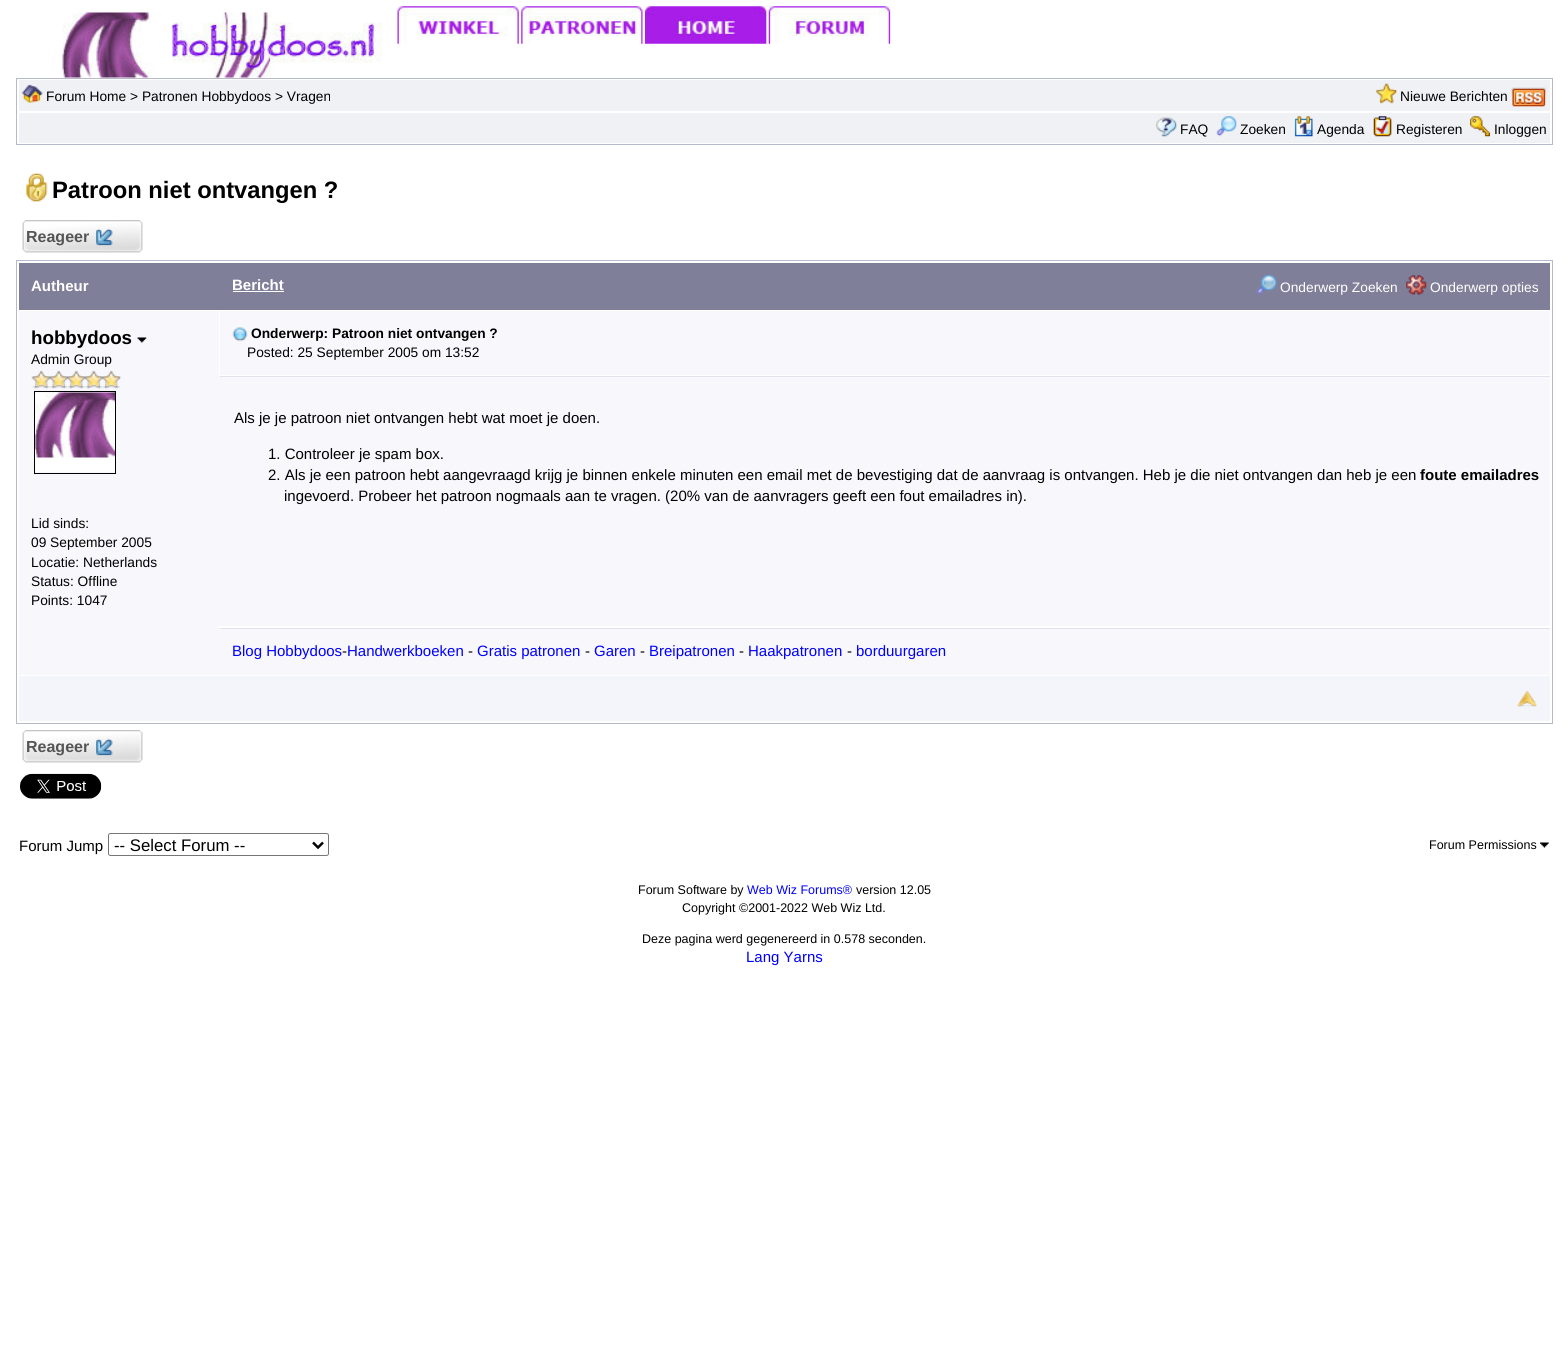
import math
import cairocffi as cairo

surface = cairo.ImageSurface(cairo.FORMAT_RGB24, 1568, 1361)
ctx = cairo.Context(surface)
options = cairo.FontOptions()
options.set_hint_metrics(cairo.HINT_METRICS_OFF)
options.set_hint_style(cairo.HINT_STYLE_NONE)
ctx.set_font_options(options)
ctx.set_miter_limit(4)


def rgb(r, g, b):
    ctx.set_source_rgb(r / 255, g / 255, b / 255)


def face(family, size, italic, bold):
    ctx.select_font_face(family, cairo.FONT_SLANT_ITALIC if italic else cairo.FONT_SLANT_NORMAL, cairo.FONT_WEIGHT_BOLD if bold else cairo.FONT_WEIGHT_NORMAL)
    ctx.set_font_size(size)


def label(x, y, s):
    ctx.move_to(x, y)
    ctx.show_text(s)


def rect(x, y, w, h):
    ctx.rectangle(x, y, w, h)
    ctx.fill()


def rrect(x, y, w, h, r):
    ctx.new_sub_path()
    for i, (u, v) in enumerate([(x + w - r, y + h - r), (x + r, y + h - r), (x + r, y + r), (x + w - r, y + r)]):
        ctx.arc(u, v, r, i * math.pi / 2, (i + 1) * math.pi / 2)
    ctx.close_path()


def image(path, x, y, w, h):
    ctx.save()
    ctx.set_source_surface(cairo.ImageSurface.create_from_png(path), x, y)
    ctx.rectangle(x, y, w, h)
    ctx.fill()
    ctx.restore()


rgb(255, 255, 255)
ctx.paint()
image('image0.png', 62, 12, 321, 66)
image('image1.png', 397, 6, 124, 38)
image('image2.png', 521, 6, 124, 38)
image('image3.png', 645, 6, 124, 38)
image('image4.png', 768, 6, 125, 38)
ctx.rectangle(16.5, 78.5, 1536, 66)
rgb(182, 185, 203)
ctx.set_line_width(1)
ctx.stroke()
rgb(240, 241, 245)
rect(19, 80, 1531, 31)
image('image5.png', 22, 84, 21, 19)
face('Liberation Sans', 13.75, 0, 0)
rgb(0, 0, 0)
label(46, 101, 'Forum Home > Patronen Hobbydoos > Vragen')
image('image6.png', 1376, 83, 21, 21)
label(1400, 101, 'Nieuwe Berichten')
image('image7.png', 1511, 87, 36, 20)
rgb(240, 241, 245)
rect(19, 113, 1531, 30)
image('image8.png', 1156, 117, 21, 20)
rgb(0, 0, 0)
label(1180, 134, 'FAQ')
image('image9.png', 1216, 116, 21, 21)
label(1240, 134, 'Zoeken')
image('image10.png', 1294, 116, 19, 21)
label(1317, 134, 'Agenda')
image('image11.png', 1373, 116, 19, 21)
label(1396, 134, 'Registeren')
image('image12.png', 1470, 116, 20, 21)
label(1494, 134, 'Inloggen')
image('image13.png', 26, 173, 22, 29)
face('Liberation Sans', 23.75, 0, 1)
label(52, 198, 'Patroon niet ontvangen ?')
image('image14.png', 22, 220, 121, 33)
face('Liberation Sans', 16, 0, 1)
rgb(85, 85, 85)
label(26, 242, 'Reageer')
image('image15.png', 96, 228, 17, 18)
ctx.rectangle(16.5, 260.5, 1536, 463)
rgb(182, 185, 203)
ctx.stroke()
rgb(127, 127, 153)
rect(19, 263, 1531, 47)
face('Liberation Sans', 15, 0, 1)
rgb(255, 255, 255)
label(31, 291, 'Autheur')
label(232, 290, 'Bericht')
rect(233, 291, 51, 1)
image('image16.png', 1256, 275, 21, 20)
face('Liberation Sans', 13.75, 0, 0)
label(1280, 292, 'Onderwerp Zoeken')
image('image17.png', 1406, 275, 21, 20)
label(1430, 292, 'Onderwerp opties')
rgb(248, 248, 252)
rect(19, 311, 200, 317)
face('Liberation Sans', 18.75, 0, 1)
rgb(0, 0, 0)
label(31, 344, 'hobbydoos')
image('image18.png', 137, 337, 10, 6)
face('Liberation Sans', 13.75, 0, 0)
label(31, 364, 'Admin Group')
image('image19.png', 31, 370, 90, 19)
ctx.rectangle(34.5, 391.5, 81, 82)
ctx.stroke()
image('image20.png', 35, 392, 80, 80)
label(31, 528, 'Lid sinds:')
label(31, 547, '09 September 2005')
label(31, 567, 'Locatie: Netherlands')
label(31, 586, 'Status: Offline')
label(31, 605, 'Points: 1047')
rgb(248, 248, 252)
rect(220, 311, 1330, 64)
image('image21.png', 232, 327, 16, 15)
face('Liberation Sans', 13.75, 0, 1)
rgb(0, 0, 0)
label(251, 338, 'Onderwerp: Patroon niet ontvangen ?')
face('Liberation Sans', 13.75, 0, 0)
label(247, 357, 'Posted: 25 September 2005 om 13:52')
rgb(248, 248, 252)
rect(219, 376, 1331, 250)
rgb(225, 227, 236)
rect(220, 376, 1330, 1)
face('Liberation Sans', 15, 0, 0)
rgb(0, 0, 0)
label(234, 423, 'Als je je patroon niet ontvangen hebt wat moet je doen.')
label(268, 459, '1. Controleer je spam box.')
label(268, 480, '2. Als je een patroon hebt aangevraagd krijg je binnen enkele minuten een email met de bevestiging dat de aanvraag is ontvangen. Heb je die niet ontvangen dan heb je een')
face('Liberation Sans', 15, 0, 1)
label(1420, 480, 'foute emailadres')
face('Liberation Sans', 15, 0, 0)
label(284, 501, 'ingevoerd. Probeer het patroon nogmaals aan te vragen. (20% van de aanvragers geeft een fout emailadres in).')
rgb(248, 248, 252)
rect(19, 628, 1531, 47)
rgb(225, 227, 236)
rect(220, 628, 1330, 1)
rgb(0, 0, 255)
label(232, 656, 'Blog Hobbydoos')
rgb(0, 0, 0)
label(342, 656, '-')
rgb(0, 0, 255)
label(347, 656, 'Handwerkboeken')
rgb(0, 0, 0)
label(468, 656, '-')
rgb(0, 0, 255)
label(477, 656, 'Gratis patronen')
rgb(0, 0, 0)
label(585, 656, '-')
rgb(0, 0, 255)
label(594, 656, 'Garen')
rgb(0, 0, 0)
label(640, 656, '-')
rgb(0, 0, 255)
label(649, 656, 'Breipatronen')
rgb(0, 0, 0)
label(739, 656, '-')
rgb(0, 0, 255)
label(748, 656, 'Haakpatronen')
rgb(0, 0, 0)
label(847, 656, '-')
rgb(0, 0, 255)
label(856, 656, 'borduurgaren')
rgb(244, 244, 251)
rect(19, 676, 1531, 45)
image('image22.png', 1517, 691, 20, 16)
image('image14.png', 22, 730, 121, 33)
face('Liberation Sans', 16, 0, 1)
rgb(85, 85, 85)
label(26, 752, 'Reageer')
image('image15.png', 96, 738, 17, 18)
image('image23.png', 20, 773, 82, 26)
face('Liberation Sans', 15, 0, 0)
rgb(0, 0, 0)
label(19, 851, 'Forum Jump')
rrect(108.5, 833.5, 220, 22, 2)
rgb(118, 118, 118)
ctx.stroke()
ctx.new_path()
ctx.move_to(313, 842.5)
ctx.line_to(318, 847.5)
ctx.line_to(323, 842.5)
rgb(0, 0, 0)
ctx.set_line_width(2.5)
ctx.stroke()
face('Liberation Sans', 16.75, 0, 0)
label(114, 851, '-- Select Forum --')
face('Liberation Sans', 12.5, 0, 0)
label(1429, 849, 'Forum Permissions')
image('image24.png', 1540, 842, 9, 6)
label(638, 894, 'Forum Software by')
rgb(0, 0, 255)
label(747, 894, 'Web Wiz Forums®')
rgb(0, 0, 0)
label(856, 894, 'version 12.05')
label(682, 912, 'Copyright ©2001-2022 Web Wiz Ltd.')
label(642, 943, 'Deze pagina werd gegenereerd in 0.578 seconden.')
face('Liberation Sans', 15, 0, 0)
rgb(0, 0, 255)
label(746, 962, 'Lang Yarns')
surface.write_to_png('render.png')
